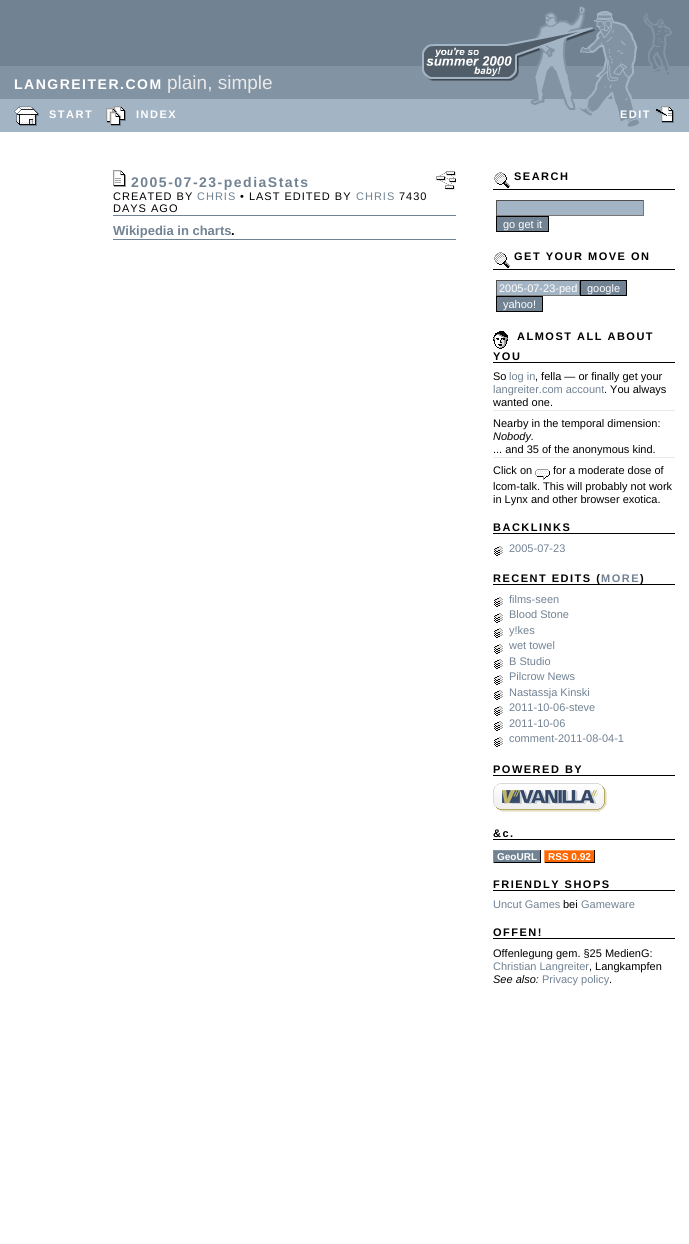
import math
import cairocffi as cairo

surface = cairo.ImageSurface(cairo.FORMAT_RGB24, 689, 1244)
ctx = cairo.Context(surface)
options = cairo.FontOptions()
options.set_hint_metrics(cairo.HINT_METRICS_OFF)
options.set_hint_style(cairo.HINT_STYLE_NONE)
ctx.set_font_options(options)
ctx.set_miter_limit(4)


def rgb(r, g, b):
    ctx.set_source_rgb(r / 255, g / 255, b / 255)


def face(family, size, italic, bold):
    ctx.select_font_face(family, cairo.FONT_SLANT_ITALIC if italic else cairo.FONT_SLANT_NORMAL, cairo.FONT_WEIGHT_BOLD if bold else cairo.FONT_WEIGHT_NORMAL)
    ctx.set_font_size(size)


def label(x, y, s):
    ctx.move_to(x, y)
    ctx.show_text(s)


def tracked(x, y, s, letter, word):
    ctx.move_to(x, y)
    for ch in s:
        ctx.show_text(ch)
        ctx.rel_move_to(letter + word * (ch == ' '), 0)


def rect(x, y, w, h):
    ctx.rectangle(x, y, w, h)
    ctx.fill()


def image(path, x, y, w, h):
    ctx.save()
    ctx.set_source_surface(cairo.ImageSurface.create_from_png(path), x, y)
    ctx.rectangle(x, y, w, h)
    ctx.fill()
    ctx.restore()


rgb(255, 255, 255)
ctx.paint()
rgb(113, 130, 147)
rect(0, 0, 689, 66)
rgb(130, 147, 164)
rect(0, 66, 689, 33)
face('Liberation Sans', 14, 0, 1)
rgb(255, 255, 255)
tracked(14, 89, 'LANGREITER.COM', 1.5, 0)
face('Liberation Sans', 19, 0, 0)
rgb(233, 233, 233)
label(167, 89, 'plain, simple')
rgb(163, 180, 197)
rect(0, 99, 689, 33)
image('image0.png', 14, 106, 25, 20)
face('Liberation Sans', 11, 0, 1)
rgb(255, 255, 255)
tracked(49, 118, 'START', 1.5, 0)
image('image1.png', 106, 106, 20, 20)
tracked(136, 118, 'INDEX', 1.5, 0)
image('image2.png', 422, 6, 250, 121)
tracked(620, 118, 'EDIT', 1.5, 0)
image('image3.png', 656, 106, 18, 17)
image('image4.png', 113, 170, 13, 17)
face('Liberation Sans', 14, 0, 1)
rgb(113, 130, 147)
tracked(131, 187, '2005-07-23-pediaStats', 1.5, 0)
image('image5.png', 436, 171, 20, 19)
face('Liberation Sans', 11, 0, 0)
rgb(0, 0, 0)
tracked(113, 200, 'CREATED BY', 1, 0)
rgb(113, 130, 147)
tracked(197, 200, 'CHRIS', 1, 0)
rgb(0, 0, 0)
tracked(240, 200, '• LAST EDITED BY', 1, 0)
rgb(113, 130, 147)
tracked(356, 200, 'CHRIS', 1, 0)
rgb(0, 0, 0)
tracked(399, 200, '7430', 1, 0)
tracked(113, 212, 'DAYS AGO', 1, 0)
rgb(113, 130, 147)
rect(113, 215, 343, 1)
face('Liberation Sans', 13, 0, 1)
label(113, 235, 'Wikipedia in charts')
rgb(0, 0, 0)
label(231, 235, '.')
rgb(113, 130, 147)
rect(113, 239, 343, 1)
image('image6.png', 494, 172, 16, 16)
face('Liberation Sans', 11, 0, 1)
rgb(0, 0, 0)
tracked(514, 180, 'SEARCH', 1.5, 0)
rect(493, 189, 182, 1)
rgb(163, 180, 197)
rect(497, 201, 146, 14)
rgb(79, 79, 79)
rect(496, 200, 148, 1)
rgb(118, 118, 118)
rect(643, 200, 1, 16)
rect(496, 215, 148, 1)
rgb(79, 79, 79)
rect(496, 200, 1, 16)
rgb(113, 130, 147)
ctx.rectangle(496.5, 216.5, 52, 15)
ctx.fill_preserve()
rgb(0, 0, 0)
ctx.set_line_width(1)
ctx.stroke()
face('Liberation Sans', 11, 0, 0)
rgb(255, 255, 255)
label(503, 228, 'go get it')
image('image6.png', 494, 252, 16, 16)
face('Liberation Sans', 11, 0, 1)
rgb(0, 0, 0)
tracked(514, 260, 'GET YOUR MOVE ON', 1.5, 0)
rect(493, 269, 182, 1)
rgb(163, 180, 197)
rect(497, 281, 82, 14)
rgb(79, 79, 79)
rect(496, 280, 84, 1)
rgb(118, 118, 118)
rect(579, 280, 1, 16)
rect(496, 295, 84, 1)
rgb(79, 79, 79)
rect(496, 280, 1, 16)
face('Liberation Sans', 11, 0, 0)
rgb(255, 255, 255)
label(499, 292, '2005-07-23-ped')
rgb(113, 130, 147)
ctx.rectangle(580.5, 280.5, 46, 15)
ctx.fill_preserve()
rgb(0, 0, 0)
ctx.stroke()
rgb(255, 255, 255)
label(587, 292, 'google')
rgb(113, 130, 147)
ctx.rectangle(496.5, 296.5, 46, 15)
ctx.fill_preserve()
rgb(0, 0, 0)
ctx.stroke()
rgb(255, 255, 255)
label(503, 308, 'yahoo!')
image('image7.png', 493, 331, 15, 18)
face('Liberation Sans', 11, 0, 1)
rgb(0, 0, 0)
tracked(517, 340, 'ALMOST ALL ABOUT', 1.5, 0)
tracked(493, 360, 'YOU', 1.5, 0)
rect(493, 362, 182, 1)
face('Liberation Sans', 11, 0, 0)
label(493, 380, 'So')
rgb(113, 130, 147)
label(509, 380, 'log in')
rgb(0, 0, 0)
label(535, 380, ', fella — or finally get your')
rgb(113, 130, 147)
label(493, 393, 'langreiter.com account')
rgb(0, 0, 0)
label(604, 393, '. You always')
label(493, 406, 'wanted one.')
rgb(233, 233, 233)
rect(493, 410, 182, 1)
rgb(0, 0, 0)
label(493, 427, 'Nearby in the temporal dimension:')
face('Liberation Sans', 11, 1, 0)
label(493, 440, 'Nobody.')
face('Liberation Sans', 11, 0, 0)
label(493, 453, '... and 35 of the anonymous kind.')
rgb(233, 233, 233)
rect(493, 457, 182, 1)
rgb(0, 0, 0)
label(493, 474, 'Click on')
image('image8.png', 535, 469, 15, 11)
label(553, 474, 'for a moderate dose of')
label(493, 490, 'lcom-talk. This will probably not work')
label(493, 503, 'in Lynx and other browser exotica.')
face('Liberation Sans', 11, 0, 1)
tracked(493, 531, 'BACKLINKS', 1.5, 0)
rect(493, 533, 182, 1)
image('image9.png', 494, 546, 9, 10)
face('Liberation Sans', 11, 0, 0)
rgb(113, 130, 147)
label(509, 552, '2005-07-23')
face('Liberation Sans', 11, 0, 1)
rgb(0, 0, 0)
tracked(493, 582, 'RECENT EDITS (', 1.5, 0)
rgb(113, 130, 147)
tracked(601, 582, 'MORE', 1.5, 0)
rgb(0, 0, 0)
tracked(640, 582, ')', 1.5, 0)
rect(493, 584, 182, 1)
image('image9.png', 494, 597, 9, 10)
face('Liberation Sans', 11, 0, 0)
rgb(113, 130, 147)
label(509, 603, 'films-seen')
image('image9.png', 494, 613, 9, 10)
label(509, 618, 'Blood Stone')
image('image9.png', 494, 628, 9, 10)
label(509, 634, 'y!kes')
image('image9.png', 494, 644, 9, 10)
label(509, 649, 'wet towel')
image('image9.png', 494, 659, 9, 10)
label(509, 665, 'B Studio')
image('image9.png', 494, 675, 9, 10)
label(509, 680, 'Pilcrow News')
image('image9.png', 494, 690, 9, 10)
label(509, 696, 'Nastassja Kinski')
image('image9.png', 494, 706, 9, 10)
label(509, 711, '2011-10-06-steve')
image('image9.png', 494, 721, 9, 10)
label(509, 727, '2011-10-06')
image('image9.png', 494, 737, 9, 10)
label(509, 742, 'comment-2011-08-04-1')
face('Liberation Sans', 11, 0, 1)
rgb(0, 0, 0)
tracked(493, 773, 'POWERED BY', 1.5, 0)
rect(493, 775, 182, 1)
image('image10.png', 493, 783, 114, 29)
tracked(493, 837, '&c.', 1.5, 0)
rect(493, 839, 182, 1)
rgb(113, 130, 147)
rect(494, 851, 46, 11)
face('Liberation Sans', 10, 0, 1)
rgb(255, 255, 255)
label(497, 860, 'GeoURL')
rgb(130, 147, 164)
rect(493, 850, 48, 1)
rgb(0, 0, 0)
rect(540, 850, 1, 13)
rect(493, 862, 48, 1)
rgb(130, 147, 164)
rect(493, 850, 1, 13)
rgb(255, 102, 0)
rect(545, 851, 49, 11)
rgb(255, 255, 255)
label(548, 860, 'RSS 0.92')
rgb(255, 154, 87)
rect(544, 850, 51, 1)
rgb(0, 0, 0)
rect(594, 850, 1, 13)
rect(544, 862, 51, 1)
rgb(255, 154, 87)
rect(544, 850, 1, 13)
face('Liberation Sans', 11, 0, 1)
rgb(0, 0, 0)
tracked(493, 888, 'FRIENDLY SHOPS', 1.5, 0)
rect(493, 890, 182, 1)
face('Liberation Sans', 11, 0, 0)
rgb(113, 130, 147)
label(493, 908, 'Uncut Games')
rgb(0, 0, 0)
label(563, 908, 'bei')
rgb(113, 130, 147)
label(581, 908, 'Gameware')
face('Liberation Sans', 11, 0, 1)
rgb(0, 0, 0)
tracked(493, 936, 'OFFEN!', 1.5, 0)
rect(493, 938, 182, 1)
face('Liberation Sans', 11, 0, 0)
label(493, 957, 'Offenlegung gem. §25 MedienG:')
rgb(113, 130, 147)
label(493, 970, 'Christian Langreiter')
rgb(0, 0, 0)
label(589, 970, ', Langkampfen')
face('Liberation Sans', 11, 1, 0)
label(493, 983, 'See also:')
face('Liberation Sans', 11, 0, 0)
rgb(113, 130, 147)
label(542, 983, 'Privacy policy')
rgb(0, 0, 0)
label(609, 983, '.')
surface.write_to_png('render.png')
